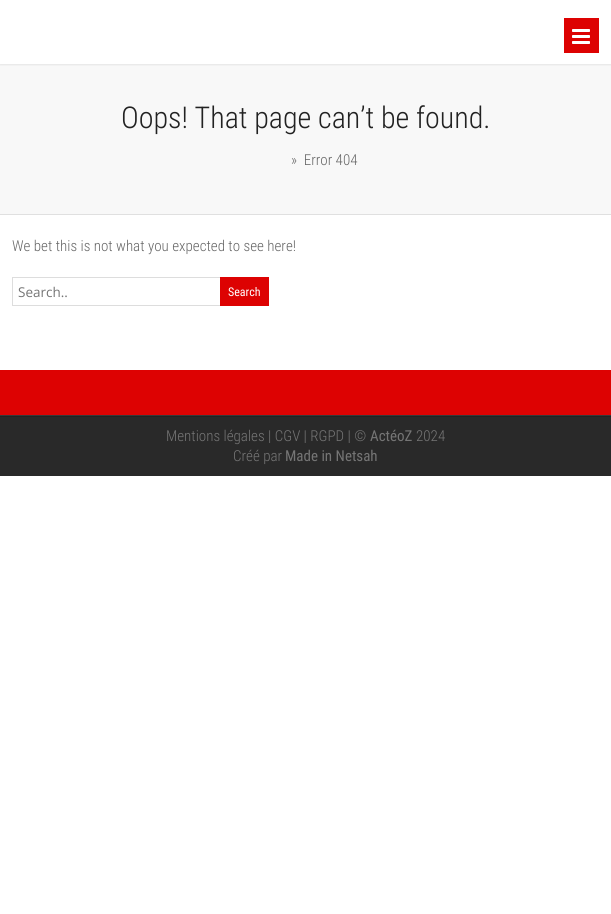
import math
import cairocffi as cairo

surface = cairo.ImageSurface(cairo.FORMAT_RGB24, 611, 914)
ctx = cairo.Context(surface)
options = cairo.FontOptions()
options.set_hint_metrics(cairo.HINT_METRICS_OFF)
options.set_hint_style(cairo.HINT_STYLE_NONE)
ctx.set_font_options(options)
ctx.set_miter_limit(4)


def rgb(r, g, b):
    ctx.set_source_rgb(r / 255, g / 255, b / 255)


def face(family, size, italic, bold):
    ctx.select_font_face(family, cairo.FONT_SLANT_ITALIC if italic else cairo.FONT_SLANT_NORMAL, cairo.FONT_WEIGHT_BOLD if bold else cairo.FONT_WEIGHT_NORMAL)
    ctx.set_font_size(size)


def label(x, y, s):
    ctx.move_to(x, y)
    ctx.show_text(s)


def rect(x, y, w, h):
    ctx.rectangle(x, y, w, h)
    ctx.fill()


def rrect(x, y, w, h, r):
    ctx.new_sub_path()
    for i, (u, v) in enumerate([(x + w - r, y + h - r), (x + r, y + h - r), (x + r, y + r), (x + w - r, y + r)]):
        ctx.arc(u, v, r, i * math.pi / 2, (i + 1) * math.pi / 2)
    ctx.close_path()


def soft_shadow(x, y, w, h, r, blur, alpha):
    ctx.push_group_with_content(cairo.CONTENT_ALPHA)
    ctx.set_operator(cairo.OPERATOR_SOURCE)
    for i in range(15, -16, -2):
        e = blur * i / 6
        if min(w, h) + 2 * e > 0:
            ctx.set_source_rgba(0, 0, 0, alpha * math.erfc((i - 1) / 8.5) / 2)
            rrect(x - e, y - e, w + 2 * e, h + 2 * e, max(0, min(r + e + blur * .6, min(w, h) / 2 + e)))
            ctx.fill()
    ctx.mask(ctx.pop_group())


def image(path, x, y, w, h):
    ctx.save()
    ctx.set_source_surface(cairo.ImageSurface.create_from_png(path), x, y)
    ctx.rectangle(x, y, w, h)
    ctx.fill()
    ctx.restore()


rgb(255, 255, 255)
ctx.paint()
rgb(248, 248, 248)
rect(0, 64, 611, 150)
ctx.save()
ctx.rectangle(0, 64, 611, 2)
ctx.clip()
rgb(0, 0, 0)
soft_shadow(0, 0, 611, 64, 0, 1.5, 0.15)
ctx.restore()
rgb(221, 2, 2)
rect(564, 18, 35, 35)
image('image0.png', 572, 29, 18, 15)
rgb(224, 224, 224)
rect(0, 214, 611, 1)
face('Roboto Condensed Light', 30, 0, 0)
rgb(34, 34, 34)
label(121, 128, 'Oops! That page can’t be found.')
face('Roboto Condensed Light', 15, 0, 0)
rgb(102, 102, 102)
label(291, 165, '»  Error 404')
label(12, 251, 'We bet this is not what you expected to see here!')
rgb(221, 221, 221)
rect(12, 277, 208, 1)
rect(12, 305, 208, 1)
rect(12, 277, 1, 29)
face('Open Sans', 13.5, 0, 0)
rgb(117, 117, 117)
label(18, 297, 'Search..')
rgb(221, 2, 2)
rect(220, 277, 49, 29)
face('Roboto Condensed', 12, 0, 0)
rgb(255, 255, 255)
label(228, 296, 'Search')
rgb(221, 2, 2)
rect(0, 370, 611, 45)
rgb(41, 41, 41)
rect(0, 417, 611, 59)
rgb(34, 34, 34)
rect(0, 416, 611, 1)
rgb(56, 56, 56)
rect(0, 415, 611, 1)
face('Roboto Condensed Light', 15, 0, 0)
rgb(117, 117, 117)
label(166, 441, 'Mentions légales | CGV | RGPD | ©')
face('Roboto Condensed', 15, 0, 0)
label(370, 441, 'ActéoZ')
face('Roboto Condensed Light', 15, 0, 0)
label(416, 441, '2024')
label(233, 461, 'Créé par')
face('Roboto Condensed', 15, 0, 0)
label(285, 461, 'Made in Netsah')
surface.write_to_png('render.png')
